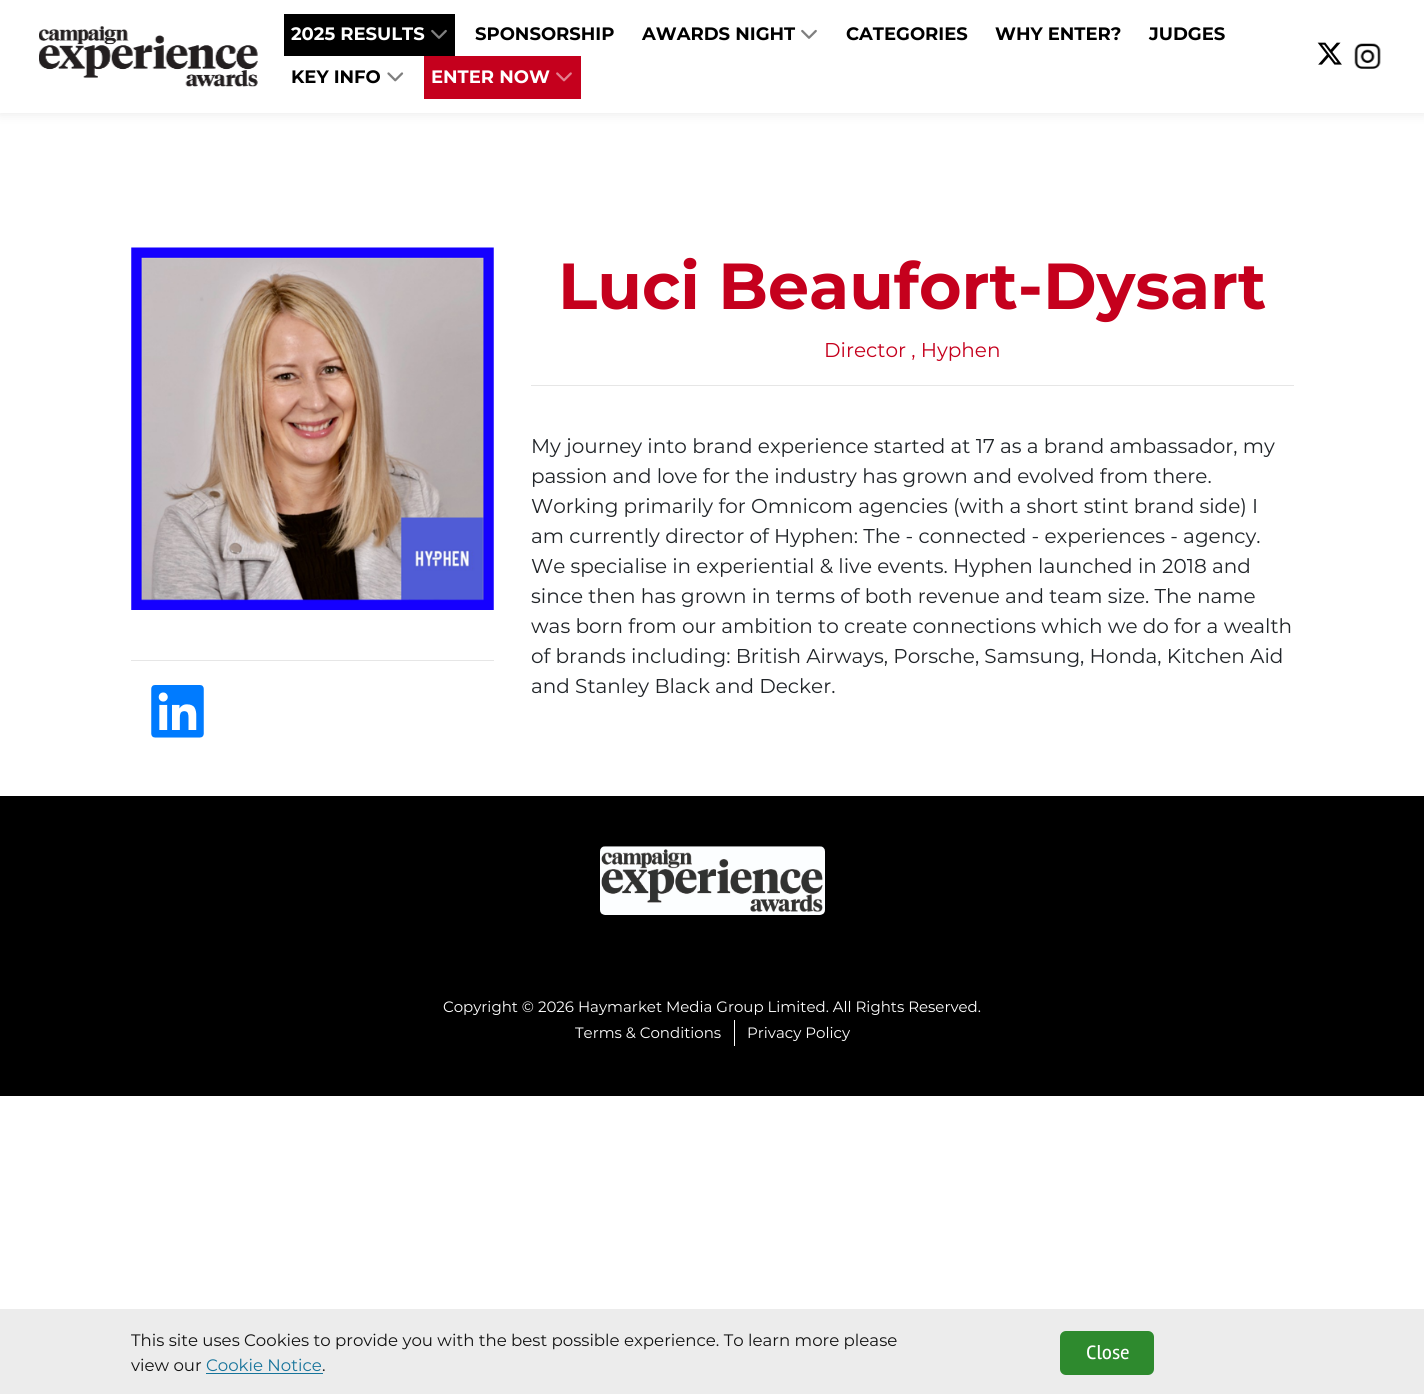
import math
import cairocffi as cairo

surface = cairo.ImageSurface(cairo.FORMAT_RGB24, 1424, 1394)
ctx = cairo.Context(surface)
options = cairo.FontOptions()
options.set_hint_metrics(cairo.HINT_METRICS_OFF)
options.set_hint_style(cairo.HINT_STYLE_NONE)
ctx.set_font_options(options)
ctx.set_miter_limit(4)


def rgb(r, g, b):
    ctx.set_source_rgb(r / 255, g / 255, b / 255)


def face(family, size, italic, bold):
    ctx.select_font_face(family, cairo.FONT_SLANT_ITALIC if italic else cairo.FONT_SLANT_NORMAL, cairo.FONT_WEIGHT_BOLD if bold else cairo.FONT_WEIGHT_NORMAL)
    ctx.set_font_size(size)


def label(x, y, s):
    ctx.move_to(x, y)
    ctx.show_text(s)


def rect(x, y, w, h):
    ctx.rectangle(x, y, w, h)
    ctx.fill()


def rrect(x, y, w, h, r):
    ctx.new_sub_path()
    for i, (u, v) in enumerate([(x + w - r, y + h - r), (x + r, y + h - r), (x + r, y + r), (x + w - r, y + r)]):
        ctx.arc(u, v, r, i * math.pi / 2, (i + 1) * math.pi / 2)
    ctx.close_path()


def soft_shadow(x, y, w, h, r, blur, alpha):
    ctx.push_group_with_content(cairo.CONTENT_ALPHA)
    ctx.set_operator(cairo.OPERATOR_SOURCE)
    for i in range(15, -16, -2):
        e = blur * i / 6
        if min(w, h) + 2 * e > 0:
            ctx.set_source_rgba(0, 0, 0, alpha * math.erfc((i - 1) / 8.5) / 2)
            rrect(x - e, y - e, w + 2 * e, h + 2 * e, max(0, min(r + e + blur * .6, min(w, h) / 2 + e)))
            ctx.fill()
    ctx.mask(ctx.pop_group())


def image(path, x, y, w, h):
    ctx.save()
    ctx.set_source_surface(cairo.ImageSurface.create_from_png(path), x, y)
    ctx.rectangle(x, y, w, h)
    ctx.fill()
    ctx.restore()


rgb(255, 255, 255)
ctx.paint()
rgb(0, 0, 0)
soft_shadow(0, 0, 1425, 113, 0, 6, 0.1)
rgb(255, 255, 255)
rect(0, 0, 1424, 113)
image('image0.png', 39, 26, 219, 61)
rgb(0, 0, 0)
rect(284, 14, 171, 42)
face('Montserrat', 18, 0, 1)
rgb(255, 255, 255)
label(291, 40, '2025 RESULTS')
image('image1.png', 431, 29, 16, 10)
rgb(0, 0, 0)
label(475, 40, 'SPONSORSHIP')
label(642, 40, 'AWARDS NIGHT')
image('image2.png', 801, 29, 16, 10)
label(846, 40, 'CATEGORIES')
label(995, 40, 'WHY ENTER?')
label(1149, 40, 'JUDGES')
label(291, 83, 'KEY INFO')
image('image3.png', 387, 72, 17, 10)
rgb(197, 0, 29)
rect(424, 56, 157, 43)
rgb(255, 255, 255)
label(431, 83, 'ENTER NOW')
image('image4.png', 556, 72, 16, 10)
image('image5.png', 1317, 42, 25, 23)
image('image6.png', 1354, 43, 27, 26)
image('image7.png', 131, 247, 363, 363)
rgb(230, 230, 230)
rect(131, 660, 363, 1)
image('image8.png', 151, 685, 53, 53)
face('Montserrat', 65, 0, 1)
rgb(197, 0, 29)
label(558, 309, 'Luci Beaufort-Dysart')
face('Montserrat', 20, 0, 0)
label(824, 357, 'Director , Hyphen')
rgb(230, 230, 230)
rect(531, 385, 763, 1)
rgb(33, 37, 41)
label(531, 453, 'My journey into brand experience started at 17 as a brand ambassador, my')
label(531, 483, 'passion and love for the industry has grown and evolved from there.')
label(531, 513, 'Working primarily for Omnicom agencies (with a short stint brand side) I')
label(531, 543, 'am currently director of Hyphen: The - connected - experiences - agency.')
label(531, 573, 'We specialise in experiential & live events. Hyphen launched in 2018 and')
label(531, 603, 'since then has grown in terms of both revenue and team size. The name')
label(531, 633, 'was born from our ambition to create connections which we do for a wealth')
label(531, 663, 'of brands including: British Airways, Porsche, Samsung, Honda, Kitchen Aid')
label(531, 693, 'and Stanley Black and Decker.')
rgb(0, 0, 0)
rect(0, 796, 1424, 300)
image('image9.png', 600, 846, 225, 69)
face('Montserrat', 15, 0, 0)
rgb(255, 255, 255)
label(443, 1012, 'Copyright © 2026 Haymarket Media Group Limited. All Rights Reserved.')
label(575, 1038, 'Terms & Conditions')
rect(734, 1020, 1, 26)
label(747, 1038, 'Privacy Policy')
rgb(236, 236, 236)
rect(0, 1309, 1424, 85)
face('Montserrat', 16.6, 0, 0)
rgb(18, 18, 18)
label(131, 1346, 'This site uses Cookies to provide you with the best possible experience. To learn more please')
label(131, 1371, 'view our')
rgb(23, 116, 155)
label(206, 1371, 'Cookie Notice')
rect(206, 1373, 117, 1)
rgb(18, 18, 18)
label(322, 1371, '.')
rgb(46, 138, 46)
rrect(1060, 1331, 94, 44, 6)
ctx.fill()
face('Rambla', 20, 0, 0)
rgb(255, 255, 255)
label(1086, 1359, 'Close')
surface.write_to_png('render.png')
